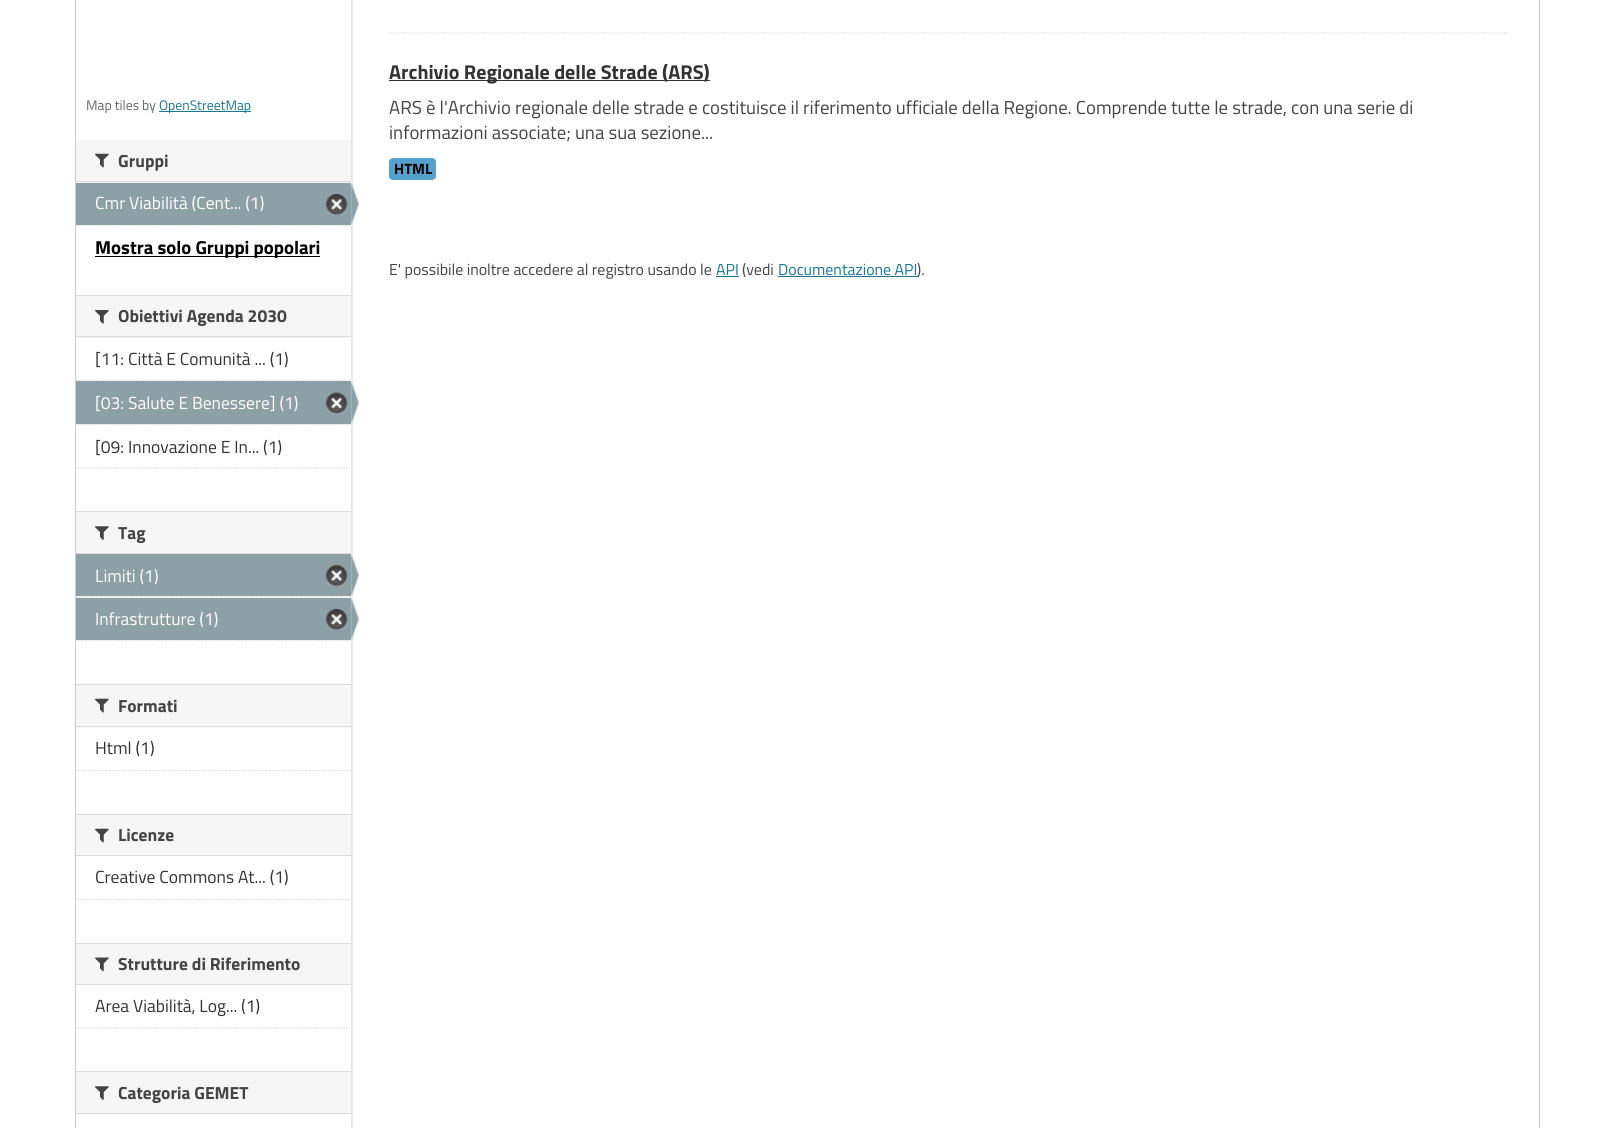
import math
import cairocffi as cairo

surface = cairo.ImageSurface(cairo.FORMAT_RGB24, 1612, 1128)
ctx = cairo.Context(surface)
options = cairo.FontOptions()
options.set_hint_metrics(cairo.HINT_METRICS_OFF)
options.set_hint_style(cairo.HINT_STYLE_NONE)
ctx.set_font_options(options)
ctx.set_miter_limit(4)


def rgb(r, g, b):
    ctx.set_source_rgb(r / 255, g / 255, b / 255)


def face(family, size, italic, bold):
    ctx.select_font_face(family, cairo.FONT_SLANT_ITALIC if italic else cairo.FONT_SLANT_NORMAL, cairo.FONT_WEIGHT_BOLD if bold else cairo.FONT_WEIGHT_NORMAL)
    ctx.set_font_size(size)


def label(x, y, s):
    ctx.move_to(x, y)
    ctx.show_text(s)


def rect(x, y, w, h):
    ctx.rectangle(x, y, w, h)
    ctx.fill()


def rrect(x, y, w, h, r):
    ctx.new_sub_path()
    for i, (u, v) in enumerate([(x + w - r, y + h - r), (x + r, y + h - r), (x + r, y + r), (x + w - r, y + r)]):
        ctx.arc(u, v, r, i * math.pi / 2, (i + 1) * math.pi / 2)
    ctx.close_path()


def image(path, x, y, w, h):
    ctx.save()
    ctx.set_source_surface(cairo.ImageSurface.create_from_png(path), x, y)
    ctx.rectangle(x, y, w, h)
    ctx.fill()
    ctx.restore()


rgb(255, 255, 255)
ctx.paint()
image('image0.png', 351, 0, 2, 1128)
ctx.rectangle(75.5, -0.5, 1464, 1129)
rgb(204, 204, 204)
ctx.set_line_width(1)
ctx.stroke()
face('Titillium Web', 13.75, 0, 0)
rgb(102, 102, 102)
label(86, 110, 'Map tiles by')
rgb(24, 119, 148)
rect(159, 111, 92, 1)
label(159, 110, 'OpenStreetMap')
rgb(246, 246, 246)
ctx.new_path()
ctx.move_to(80, 140)
ctx.line_to(351, 140)
ctx.line_to(351, 183)
ctx.line_to(76, 183)
ctx.line_to(76, 144)
ctx.curve_to(76, 142, 78, 140, 80, 140)
ctx.close_path()
ctx.fill()
rgb(221, 221, 221)
rect(76, 181, 275, 1)
image('image1.png', 95, 153, 14, 15)
face('Titillium Web', 17.5, 0, 1)
rgb(68, 68, 68)
label(118, 167, 'Gruppi')
ctx.new_path()
ctx.move_to(76, 225.5)
ctx.line_to(351, 225.5)
rgb(221, 221, 221)
ctx.set_line_width(1.2)
ctx.set_dash([1.25, 1.25])
ctx.stroke()
rgb(140, 160, 166)
rect(76, 183, 275, 42)
face('Titillium Web', 17.5, 0, 0)
rgb(255, 255, 255)
label(95, 209, 'Cmr Viabilità (Cent... (1)')
image('image2.png', 326, 194, 22, 22)
image('image3.png', 351, 183, 8, 42)
rgb(0, 0, 0)
rect(95, 256, 225, 1)
face('Titillium Web', 18.75, 0, 1)
label(95, 254, 'Mostra solo Gruppi popolari')
rgb(246, 246, 246)
rect(76, 296, 275, 42)
rgb(221, 221, 221)
rect(76, 295, 275, 1)
rect(76, 336, 275, 1)
image('image4.png', 95, 310, 14, 14)
face('Titillium Web', 17.5, 0, 1)
rgb(68, 68, 68)
label(118, 322, 'Obiettivi Agenda 2030')
ctx.new_path()
ctx.move_to(76, 380.5)
ctx.line_to(351, 380.5)
rgb(221, 221, 221)
ctx.stroke()
face('Titillium Web', 17.5, 0, 0)
rgb(51, 51, 51)
label(95, 365, '[11: Città E Comunità ... (1)')
rgb(246, 246, 246)
rect(77, 424, 274, 1)
ctx.new_path()
ctx.move_to(76, 424.5)
ctx.line_to(351, 424.5)
rgb(221, 221, 221)
ctx.stroke()
rgb(140, 160, 166)
rect(76, 381, 275, 43)
rgb(255, 255, 255)
label(95, 409, '[03: Salute E Benessere] (1)')
image('image5.png', 326, 392, 22, 22)
image('image6.png', 351, 382, 8, 42)
rgb(51, 51, 51)
label(95, 453, '[09: Innovazione E In... (1)')
ctx.new_path()
ctx.move_to(76, 468)
ctx.line_to(351, 468)
rgb(221, 221, 221)
ctx.stroke()
rgb(246, 246, 246)
rect(76, 512, 275, 41)
rgb(221, 221, 221)
rect(76, 511, 275, 1)
rect(76, 553, 275, 1)
image('image7.png', 95, 526, 14, 14)
face('Titillium Web', 17.5, 0, 1)
rgb(68, 68, 68)
label(118, 539, 'Tag')
rgb(246, 246, 246)
rect(76, 596, 275, 2)
ctx.new_path()
ctx.move_to(76, 597)
ctx.line_to(351, 597)
rgb(221, 221, 221)
ctx.stroke()
rgb(140, 160, 166)
rect(76, 554, 275, 42)
face('Titillium Web', 17.5, 0, 0)
rgb(255, 255, 255)
label(95, 582, 'Limiti (1)')
image('image8.png', 326, 565, 22, 22)
image('image9.png', 351, 554, 8, 42)
ctx.new_path()
ctx.move_to(76, 640.5)
ctx.line_to(351, 640.5)
rgb(221, 221, 221)
ctx.stroke()
rgb(140, 160, 166)
rect(76, 598, 275, 42)
rgb(255, 255, 255)
label(95, 625, 'Infrastrutture (1)')
image('image2.png', 326, 609, 22, 22)
image('image10.png', 351, 598, 8, 42)
rgb(246, 246, 246)
rect(76, 685, 275, 43)
rgb(221, 221, 221)
rect(76, 684, 275, 1)
rect(76, 726, 275, 1)
image('image1.png', 95, 698, 14, 15)
face('Titillium Web', 17.5, 0, 1)
rgb(68, 68, 68)
label(118, 712, 'Formati')
face('Titillium Web', 17.5, 0, 0)
rgb(51, 51, 51)
label(95, 754, 'Html (1)')
ctx.new_path()
ctx.move_to(76, 770.5)
ctx.line_to(351, 770.5)
rgb(221, 221, 221)
ctx.stroke()
rgb(246, 246, 246)
rect(76, 815, 275, 40)
rgb(221, 221, 221)
rect(76, 814, 275, 1)
rect(76, 855, 275, 1)
image('image1.png', 95, 828, 14, 15)
face('Titillium Web', 17.5, 0, 1)
rgb(68, 68, 68)
label(118, 841, 'Licenze')
face('Titillium Web', 17.5, 0, 0)
rgb(51, 51, 51)
label(95, 883, 'Creative Commons At... (1)')
ctx.new_path()
ctx.move_to(76, 899.5)
ctx.line_to(351, 899.5)
rgb(221, 221, 221)
ctx.stroke()
rgb(246, 246, 246)
rect(76, 944, 275, 40)
rgb(221, 221, 221)
rect(76, 943, 275, 1)
rect(76, 984, 275, 1)
image('image11.png', 95, 957, 14, 15)
face('Titillium Web', 17.5, 0, 1)
rgb(68, 68, 68)
label(118, 970, 'Strutture di Riferimento')
face('Titillium Web', 17.5, 0, 0)
rgb(51, 51, 51)
label(95, 1012, 'Area Viabilità, Log... (1)')
ctx.new_path()
ctx.move_to(76, 1028)
ctx.line_to(351, 1028)
rgb(221, 221, 221)
ctx.stroke()
rgb(246, 246, 246)
rect(76, 1072, 275, 41)
rgb(221, 221, 221)
rect(76, 1071, 275, 1)
rect(76, 1113, 275, 1)
image('image7.png', 95, 1086, 14, 14)
face('Titillium Web', 17.5, 0, 1)
rgb(68, 68, 68)
label(118, 1099, 'Categoria GEMET')
ctx.new_path()
ctx.move_to(389, 33)
ctx.line_to(1507.5, 33)
rgb(221, 221, 221)
ctx.stroke()
rgb(51, 51, 51)
rect(389, 80, 321, 1)
face('Titillium Web', 20, 0, 1)
label(389, 79, 'Archivio Regionale delle Strade (ARS)')
face('Titillium Web', 18.75, 0, 0)
rgb(68, 68, 68)
label(389, 114, 'ARS è l\'Archivio regionale delle strade e costituisce il riferimento ufficiale della Regione. Comprende tutte le strade, con una serie di')
label(389, 139, 'informazioni associate; una sua sezione...')
rgb(85, 161, 206)
rrect(389, 158, 47, 22, 4)
ctx.fill()
face('Titillium Web', 15, 0, 1)
rgb(0, 0, 0)
label(394, 174, 'HTML')
face('Titillium Web', 15.9, 0, 0)
rgb(68, 68, 68)
label(389, 275, 'E\' possibile inoltre accedere al registro usando le')
rgb(24, 119, 148)
label(716, 275, 'API')
rect(716, 276, 23, 1)
rgb(68, 68, 68)
label(742, 275, '(vedi')
rgb(24, 119, 148)
label(778, 275, 'Documentazione API')
rect(778, 276, 140, 1)
rgb(68, 68, 68)
label(917, 275, ').')
surface.write_to_png('render.png')
